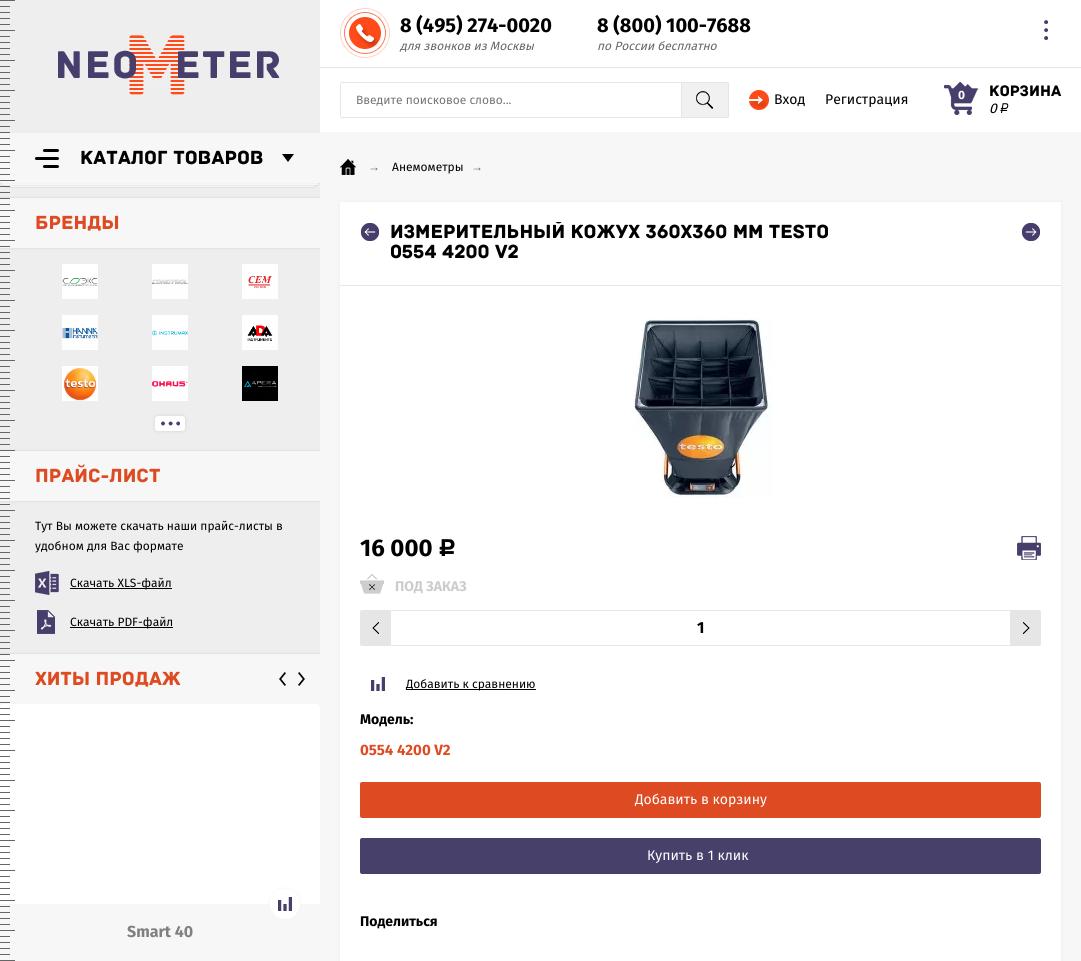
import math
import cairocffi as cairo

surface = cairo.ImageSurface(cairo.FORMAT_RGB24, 1081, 961)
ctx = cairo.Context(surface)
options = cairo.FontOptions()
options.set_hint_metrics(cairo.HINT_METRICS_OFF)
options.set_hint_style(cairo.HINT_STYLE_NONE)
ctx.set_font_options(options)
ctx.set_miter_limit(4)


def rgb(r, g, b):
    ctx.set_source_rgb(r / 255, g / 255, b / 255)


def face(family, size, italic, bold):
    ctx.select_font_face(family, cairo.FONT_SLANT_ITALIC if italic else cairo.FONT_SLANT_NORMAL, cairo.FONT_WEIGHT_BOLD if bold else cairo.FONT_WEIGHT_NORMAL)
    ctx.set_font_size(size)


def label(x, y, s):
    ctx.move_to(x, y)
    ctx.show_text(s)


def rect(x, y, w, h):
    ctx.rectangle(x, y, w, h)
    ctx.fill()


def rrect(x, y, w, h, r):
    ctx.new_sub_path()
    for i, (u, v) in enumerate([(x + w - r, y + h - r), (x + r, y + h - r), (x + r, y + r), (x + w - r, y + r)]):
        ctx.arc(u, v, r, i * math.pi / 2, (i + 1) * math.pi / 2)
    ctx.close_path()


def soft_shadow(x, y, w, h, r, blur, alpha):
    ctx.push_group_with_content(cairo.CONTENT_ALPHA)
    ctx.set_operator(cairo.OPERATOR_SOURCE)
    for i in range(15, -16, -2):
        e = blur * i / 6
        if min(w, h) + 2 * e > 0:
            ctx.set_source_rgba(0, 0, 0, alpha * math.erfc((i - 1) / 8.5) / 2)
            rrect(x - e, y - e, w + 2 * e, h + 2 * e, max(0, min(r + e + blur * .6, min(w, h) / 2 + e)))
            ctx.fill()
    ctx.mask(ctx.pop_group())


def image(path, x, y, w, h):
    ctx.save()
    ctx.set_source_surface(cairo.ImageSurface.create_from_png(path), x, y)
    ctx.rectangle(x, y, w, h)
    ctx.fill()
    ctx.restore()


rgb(238, 238, 238)
ctx.paint()
ctx.save()
ctx.rectangle(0, 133, 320, 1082)
ctx.clip()
rgb(212, 212, 213)
soft_shadow(0, 133, 320, 50, 0, 1.5, 1)
ctx.restore()
rgb(247, 247, 247)
rect(0, 133, 320, 50)
image('image4.png', 1, 183, 318, 5)
rgb(212, 212, 213)
soft_shadow(0, 198, 320, 50, 0, 1.5, 1)
rgb(247, 247, 247)
rect(0, 198, 320, 50)
rgb(212, 212, 213)
soft_shadow(0, 451, 320, 50, 0, 1.5, 1)
rgb(247, 247, 247)
rect(0, 451, 320, 50)
rgb(212, 212, 213)
soft_shadow(0, 654, 320, 50, 0, 1.5, 1)
rgb(247, 247, 247)
rect(0, 654, 320, 50)
rrect(0, 704, 320, 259, 2)
ctx.fill()
rgb(255, 255, 255)
ctx.new_path()
ctx.move_to(2, 704)
ctx.line_to(318, 704)
ctx.curve_to(319, 704, 320, 705, 320, 706)
ctx.line_to(320, 904)
ctx.line_to(0, 904)
ctx.line_to(0, 706)
ctx.curve_to(0, 705, 1, 704, 2, 704)
ctx.close_path()
ctx.fill()
image('image0.png', 0, 0, 15, 961)
image('image1.png', 58, 35, 222, 60)
image('image2.png', 35, 149, 24, 19)
face('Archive', 20, 0, 0)
rgb(0, 0, 0)
label(80, 164, 'КАТАЛОГ ТОВАРОВ')
image('image3.png', 282, 154, 12, 8)
rgb(222, 75, 34)
label(35, 229, 'БРЕНДЫ')
image('image5.png', 62, 264, 36, 35)
image('image6.png', 152, 264, 36, 35)
image('image7.png', 242, 264, 36, 35)
image('image8.png', 62, 315, 36, 35)
image('image9.png', 152, 315, 36, 35)
image('image10.png', 242, 315, 36, 35)
image('image11.png', 62, 366, 36, 35)
image('image12.png', 152, 366, 36, 35)
image('image13.png', 242, 366, 36, 35)
rgb(211, 211, 211)
soft_shadow(155, 416, 30, 15, 3, 2, 1)
rgb(255, 255, 255)
rrect(155, 416, 30, 15, 3)
ctx.fill()
image('image14.png', 161, 421, 19, 5)
rgb(222, 75, 34)
label(35, 482, 'ПРАЙС-ЛИСТ')
face('Fira Sans', 12, 0, 0)
rgb(0, 0, 0)
label(35, 530, 'Тут Вы можете скачать наши прайс-листы в')
label(35, 550, 'удобном для Вас формате')
image('image15.png', 35, 571, 24, 24)
rect(70, 588, 102, 1)
label(70, 587, 'Скачать XLS-файл')
image('image16.png', 37, 610, 18, 24)
rect(70, 627, 103, 1)
label(70, 626, 'Скачать PDF-файл')
face('Archive', 20, 0, 0)
rgb(222, 75, 34)
label(35, 685, 'ХИТЫ ПРОДАЖ')
image('image17.png', 279, 672, 7, 14)
image('image18.png', 298, 672, 7, 14)
rgb(244, 244, 244)
soft_shadow(270, 889, 30, 30, 15, 2, 1)
rgb(255, 255, 255)
ctx.arc(285, 904, 15, 0, 2 * math.pi)
ctx.fill()
image('image19.png', 278, 897, 14, 14)
face('Fira Sans', 16, 0, 1)
rgb(128, 128, 128)
label(127, 937, 'Smart 40')
rgb(247, 247, 247)
rect(320, 132, 761, 829)
rgb(255, 255, 255)
rect(320, 0, 761, 132)
rgb(230, 230, 230)
rect(320, 67, 761, 1)
image('image20.png', 340, 8, 50, 50)
face('Fira Sans', 20, 0, 1)
rgb(0, 0, 0)
label(400, 32, '8 (495) 274-0020')
face('Fira Sans', 12, 1, 0)
rgb(102, 102, 102)
label(400, 50, 'для звонков из Москвы')
face('Fira Sans', 20, 0, 1)
rgb(0, 0, 0)
label(597, 32, '8 (800) 100-7688')
face('Fira Sans', 12, 1, 0)
rgb(102, 102, 102)
label(597, 50, 'по России бесплатно')
image('image21.png', 1044, 20, 4, 20)
rrect(340.5, 82.5, 388, 35, 1.5)
rgb(230, 230, 230)
ctx.set_line_width(1)
ctx.stroke()
face('Fira Sans', 12, 0, 0)
rgb(117, 117, 117)
label(356, 104, 'Введите поисковое слово...')
rgb(241, 241, 241)
ctx.new_path()
ctx.move_to(681, 82)
ctx.line_to(727, 82)
ctx.curve_to(728, 82, 729, 83, 729, 84)
ctx.line_to(729, 116)
ctx.curve_to(729, 117, 728, 118, 727, 118)
ctx.line_to(681, 118)
ctx.close_path()
ctx.fill()
image('image22.png', 696, 91, 17, 18)
ctx.new_path()
ctx.move_to(681.5, 82.5)
ctx.line_to(727, 82.5)
ctx.curve_to(728, 82.5, 728.5, 83, 728.5, 84)
ctx.line_to(728.5, 116)
ctx.curve_to(728.5, 117, 728, 117.5, 727, 117.5)
ctx.line_to(681.5, 117.5)
ctx.close_path()
rgb(230, 230, 230)
ctx.stroke()
image('image23.png', 749, 90, 20, 20)
face('Fira Sans', 14, 0, 0)
rgb(0, 0, 0)
label(774, 104, 'Вход')
label(825, 104, 'Регистрация')
image('image24.png', 944, 82, 35, 33)
face('Fira Sans', 12, 0, 1)
rgb(255, 255, 255)
label(958, 99, '0')
face('Archive', 16, 0, 0)
rgb(0, 0, 0)
label(989, 96, 'КОРЗИНА')
face('Fira Sans', 14, 1, 0)
label(989, 113, '0')
face('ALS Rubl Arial', 14, 1, 0)
label(1000, 113, 'Р')
image('image25.png', 340, 159, 16, 16)
face('Liberation Sans', 12, 0, 0)
rgb(102, 102, 102)
label(368, 171, '→')
face('Fira Sans', 12, 0, 0)
rgb(0, 0, 0)
label(392, 171, 'Анемометры')
face('Liberation Sans', 12, 0, 0)
rgb(102, 102, 102)
label(471, 171, '→')
rgb(235, 235, 235)
soft_shadow(340, 202, 721, 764, 0, 1.5, 1)
rgb(255, 255, 255)
rect(340, 202, 721, 759)
rgb(230, 230, 230)
rect(340, 285, 721, 1)
image('image26.png', 361, 223, 18, 18)
ctx.save()
ctx.rectangle(390, 222, 476, 40)
ctx.clip()
face('Archive', 20, 0, 0)
rgb(0, 0, 0)
label(390, 238, 'ИЗМЕРИТЕЛЬНЫЙ КОЖУХ 360X360 ММ TESTO')
ctx.restore()
face('Archive', 20, 0, 0)
rgb(0, 0, 0)
label(390, 258, '0554 4200 V2')
image('image27.png', 1022, 223, 18, 18)
image('image28.png', 633, 318, 140, 180)
face('Fira Sans', 24, 0, 1)
label(360, 556, '16 000')
face('ALS Rubl Arial', 24, 0, 1)
label(438, 556, 'Р')
image('image29.png', 1017, 536, 24, 24)
image('image30.png', 360, 574, 24, 20)
face('Fira Sans', 14, 0, 1)
rgb(204, 204, 204)
label(395, 591, 'ПОД ЗАКАЗ')
rgb(230, 230, 230)
ctx.new_path()
ctx.move_to(362, 610)
ctx.line_to(390, 610)
ctx.line_to(390, 646)
ctx.line_to(362, 646)
ctx.curve_to(361, 646, 360, 645, 360, 644)
ctx.line_to(360, 612)
ctx.curve_to(360, 611, 361, 610, 362, 610)
ctx.close_path()
ctx.fill()
image('image31.png', 372, 622, 7, 12)
ctx.rectangle(390.5, 610.5, 620, 35)
ctx.stroke()
face('Fira Sans', 16, 0, 1)
rgb(0, 0, 0)
label(697, 633, '1')
rgb(230, 230, 230)
ctx.new_path()
ctx.move_to(1011, 610)
ctx.line_to(1039, 610)
ctx.curve_to(1040, 610, 1041, 611, 1041, 612)
ctx.line_to(1041, 644)
ctx.curve_to(1041, 645, 1040, 646, 1039, 646)
ctx.line_to(1011, 646)
ctx.close_path()
ctx.fill()
image('image32.png', 1023, 622, 7, 12)
image('image19.png', 371, 677, 14, 14)
rgb(0, 0, 0)
rect(406, 689, 130, 1)
face('Fira Sans', 12, 0, 0)
label(406, 688, 'Добавить к сравнению')
face('Fira Sans', 14, 0, 1)
label(360, 724, 'Модель:')
face('Fira Sans', 15, 0, 1)
rgb(222, 75, 34)
label(360, 755, '0554 4200 V2')
rrect(360, 782, 681, 36, 2)
ctx.fill()
face('Fira Sans', 14, 0, 0)
rgb(255, 255, 255)
label(635, 804, 'Добавить в корзину')
rgb(71, 64, 106)
rrect(360, 838, 681, 36, 2)
ctx.fill()
rgb(255, 255, 255)
label(647, 860, 'Купить в 1 клик')
face('Fira Sans', 14, 0, 1)
rgb(0, 0, 0)
label(360, 926, 'Поделиться')
surface.write_to_png('render.png')
